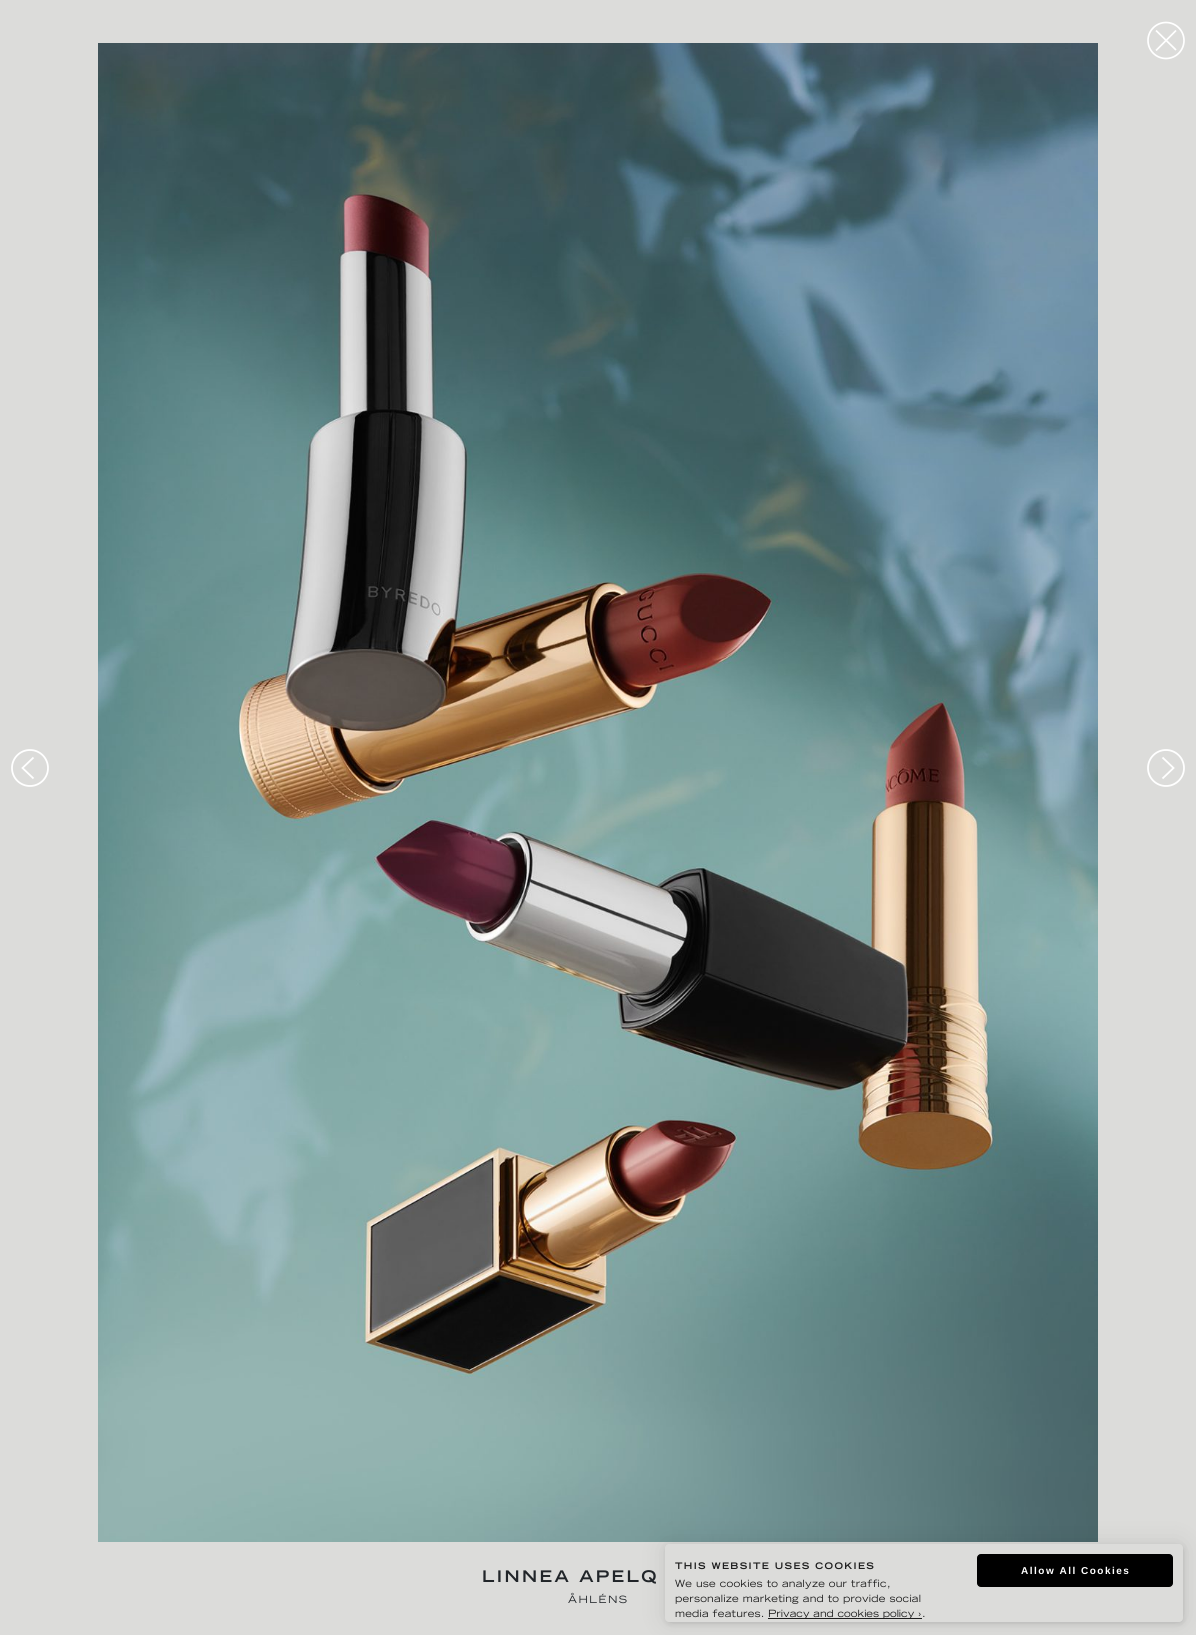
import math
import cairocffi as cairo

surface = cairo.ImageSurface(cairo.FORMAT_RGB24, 1196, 1635)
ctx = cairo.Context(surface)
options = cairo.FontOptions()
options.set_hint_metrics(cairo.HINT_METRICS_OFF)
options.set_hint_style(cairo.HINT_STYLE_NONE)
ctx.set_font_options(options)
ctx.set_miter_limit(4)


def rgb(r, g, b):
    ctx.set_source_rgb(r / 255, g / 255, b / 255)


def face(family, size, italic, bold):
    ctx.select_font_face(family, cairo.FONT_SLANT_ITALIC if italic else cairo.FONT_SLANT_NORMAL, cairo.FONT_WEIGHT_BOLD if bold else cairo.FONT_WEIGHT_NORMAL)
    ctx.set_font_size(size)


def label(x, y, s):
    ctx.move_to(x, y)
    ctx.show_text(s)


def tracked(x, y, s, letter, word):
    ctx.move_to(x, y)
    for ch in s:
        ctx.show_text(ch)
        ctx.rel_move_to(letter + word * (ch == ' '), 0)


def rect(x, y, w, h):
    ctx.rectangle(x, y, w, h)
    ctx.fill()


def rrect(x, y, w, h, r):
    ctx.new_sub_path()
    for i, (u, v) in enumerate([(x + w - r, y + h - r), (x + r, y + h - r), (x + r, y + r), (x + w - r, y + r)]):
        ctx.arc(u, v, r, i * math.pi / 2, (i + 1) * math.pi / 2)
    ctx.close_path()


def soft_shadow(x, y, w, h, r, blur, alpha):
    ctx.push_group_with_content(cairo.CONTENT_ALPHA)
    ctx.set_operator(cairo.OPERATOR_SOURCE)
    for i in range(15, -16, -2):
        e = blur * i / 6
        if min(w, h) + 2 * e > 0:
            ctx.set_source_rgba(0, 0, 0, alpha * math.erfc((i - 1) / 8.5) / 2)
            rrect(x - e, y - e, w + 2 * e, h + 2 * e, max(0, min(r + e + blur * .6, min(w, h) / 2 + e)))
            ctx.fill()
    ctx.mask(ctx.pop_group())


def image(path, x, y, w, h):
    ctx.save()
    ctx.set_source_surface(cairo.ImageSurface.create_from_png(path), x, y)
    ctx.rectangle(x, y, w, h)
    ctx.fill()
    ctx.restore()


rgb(220, 220, 218)
ctx.paint()
ctx.arc(30, 768, 18, 0, 2 * math.pi)
rgb(255, 255, 255)
ctx.set_line_width(1.8)
ctx.stroke()
ctx.new_path()
ctx.move_to(33.5, 757.5)
ctx.line_to(22.5, 768)
ctx.line_to(33.5, 778.5)
ctx.stroke()
image('image0.png', 98, 43, 1000, 1499)
ctx.arc(1166, 40.5, 18, 0, 2 * math.pi)
ctx.set_line_width(1.7)
ctx.stroke()
ctx.new_path()
ctx.move_to(1156, 50.5)
ctx.line_to(1176, 30.5)
ctx.move_to(1176, 50)
ctx.line_to(1156, 30.5)
ctx.stroke()
ctx.arc(1166, 768, 18, 0, 2 * math.pi)
ctx.set_line_width(1.8)
ctx.stroke()
ctx.new_path()
ctx.move_to(1162.5, 778.5)
ctx.line_to(1173.5, 768)
ctx.line_to(1162.5, 757.5)
ctx.stroke()
face('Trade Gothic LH', 16, 0, 1)
rgb(33, 37, 41)
tracked(482, 1582, 'LINNEA APELQ', 2.4, 0)
face('Trade Gothic LH', 10, 0, 0)
tracked(568, 1603, 'ÅHLÉNS', 1.5, 0)
rgb(0, 0, 0)
soft_shadow(666, 1546, 518, 78, 4, 2.5, 0.1)
soft_shadow(665, 1544, 518, 78, 4, 12.5, 0.1)
rgb(220, 220, 218)
rrect(665, 1544, 518, 78, 4)
ctx.fill()
face('Trade Gothic LH', 9, 0, 1)
rgb(30, 30, 30)
tracked(675, 1569, 'THIS WEBSITE USES COOKIES', 1.35, 0)
face('Trade Gothic LH', 10, 0, 0)
tracked(675, 1587, 'We use cookies to analyze our traffic,', 0.2, 0)
tracked(675, 1602, 'personalize marketing and to provide social', 0.2, 0)
tracked(675, 1617, 'media features.', 0.2, 0)
rect(768, 1618, 154, 1)
label(768, 1617, 'Privacy and cookies policy ›')
tracked(922, 1617, '.', 0.2, 0)
rgb(0, 0, 0)
rrect(977.5, 1554.5, 195, 32, 3.5)
ctx.fill_preserve()
ctx.set_line_width(1)
ctx.stroke()
face('Liberation Sans', 10, 0, 1)
rgb(255, 255, 255)
tracked(1021, 1574, 'Allow All Cookies', 1.5, 0)
surface.write_to_png('render.png')
